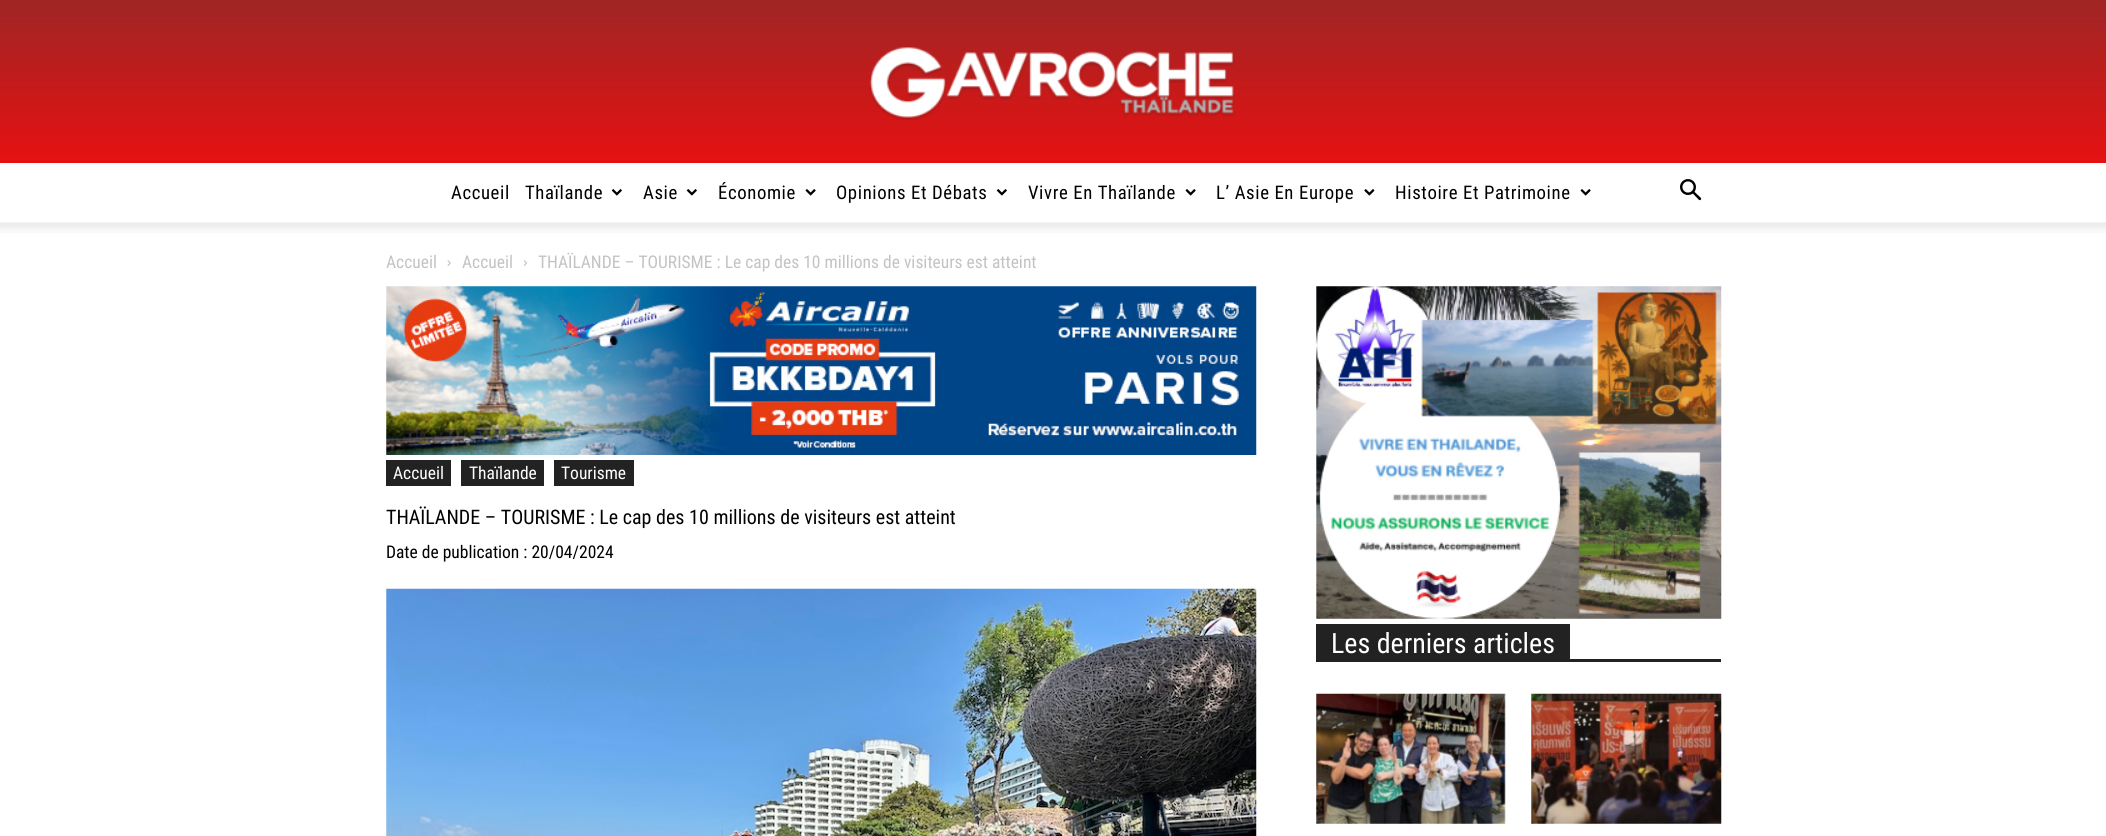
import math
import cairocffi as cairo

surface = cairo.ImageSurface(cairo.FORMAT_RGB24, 2106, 836)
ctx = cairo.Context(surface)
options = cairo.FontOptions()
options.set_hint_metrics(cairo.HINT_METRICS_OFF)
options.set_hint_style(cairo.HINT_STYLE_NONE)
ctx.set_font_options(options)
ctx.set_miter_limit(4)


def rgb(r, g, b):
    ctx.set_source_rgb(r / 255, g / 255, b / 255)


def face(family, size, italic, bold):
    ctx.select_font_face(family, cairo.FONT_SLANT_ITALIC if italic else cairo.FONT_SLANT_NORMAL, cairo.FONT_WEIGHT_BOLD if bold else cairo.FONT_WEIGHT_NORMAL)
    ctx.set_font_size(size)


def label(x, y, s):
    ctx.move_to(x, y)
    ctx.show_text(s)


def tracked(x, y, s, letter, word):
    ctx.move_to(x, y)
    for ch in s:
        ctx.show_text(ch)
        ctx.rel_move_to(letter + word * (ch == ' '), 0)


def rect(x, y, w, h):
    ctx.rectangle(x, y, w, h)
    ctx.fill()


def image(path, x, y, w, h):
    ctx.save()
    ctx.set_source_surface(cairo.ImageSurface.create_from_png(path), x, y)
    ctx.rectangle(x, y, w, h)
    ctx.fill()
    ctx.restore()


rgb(255, 255, 255)
ctx.paint()
gradient = cairo.LinearGradient(1053, 163, 1053, 0)
gradient.add_color_stop_rgba(0, 0.902, 0.067, 0.067, 1)
gradient.add_color_stop_rgba(1, 0.627, 0.145, 0.145, 1)
ctx.set_source(gradient)
rect(0, 0, 2106, 163)
image('image0.png', 869, 47, 366, 73)
face('Roboto Condensed', 18.75, 0, 0)
rgb(0, 0, 0)
tracked(451, 199, 'Accueil', 0.6, 0)
tracked(525, 199, 'Thaïlande', 0.6, 0)
image('image1.png', 611, 189, 11, 7)
tracked(643, 199, 'Asie', 0.6, 0)
image('image1.png', 686, 189, 11, 7)
tracked(718, 199, 'Économie', 0.6, 0)
image('image2.png', 805, 189, 11, 7)
tracked(836, 199, 'Opinions Et Débats', 0.6, 0)
image('image1.png', 996, 189, 11, 7)
tracked(1028, 199, 'Vivre En Thaïlande', 0.6, 0)
image('image2.png', 1185, 189, 11, 7)
tracked(1216, 199, 'L’ Asie En Europe', 0.6, 0)
image('image3.png', 1364, 189, 11, 7)
tracked(1395, 199, 'Histoire Et Patrimoine', 0.6, 0)
image('image2.png', 1580, 189, 11, 7)
image('image4.png', 1680, 179, 22, 22)
image('image5.png', 0, 222, 2106, 11)
face('Roboto Condensed', 17.5, 0, 0)
rgb(195, 195, 195)
label(386, 268, 'Accueil')
image('image6.png', 447, 260, 4, 6)
label(462, 268, 'Accueil')
image('image7.png', 523, 260, 4, 6)
label(538, 268, 'THAÏLANDE – TOURISME : Le cap des 10 millions de visiteurs est atteint')
image('image8.png', 386, 286, 871, 169)
rgb(34, 34, 34)
rect(386, 460, 65, 26)
rgb(255, 255, 255)
label(393, 479, 'Accueil')
rgb(34, 34, 34)
rect(461, 460, 83, 26)
rgb(255, 255, 255)
label(469, 479, 'Thaïlande')
rgb(34, 34, 34)
rect(554, 460, 80, 26)
rgb(255, 255, 255)
label(561, 479, 'Tourisme')
face('Roboto Condensed', 20, 0, 0)
rgb(0, 0, 0)
label(386, 524, 'THAÏLANDE – TOURISME : Le cap des 10 millions de visiteurs est atteint')
face('Roboto Condensed', 17.5, 0, 0)
label(386, 558, 'Date de publication : 20/04/2024')
image('image9.png', 386, 588, 871, 248)
image('image10.png', 1316, 286, 406, 333)
rgb(34, 34, 34)
rect(1316, 659, 405, 3)
rect(1316, 624, 254, 35)
face('Roboto Condensed', 28, 0, 0)
rgb(255, 255, 255)
label(1331, 653, 'Les derniers articles')
image('image11.png', 1316, 693, 190, 131)
image('image12.png', 1531, 693, 191, 131)
surface.write_to_png('render.png')
